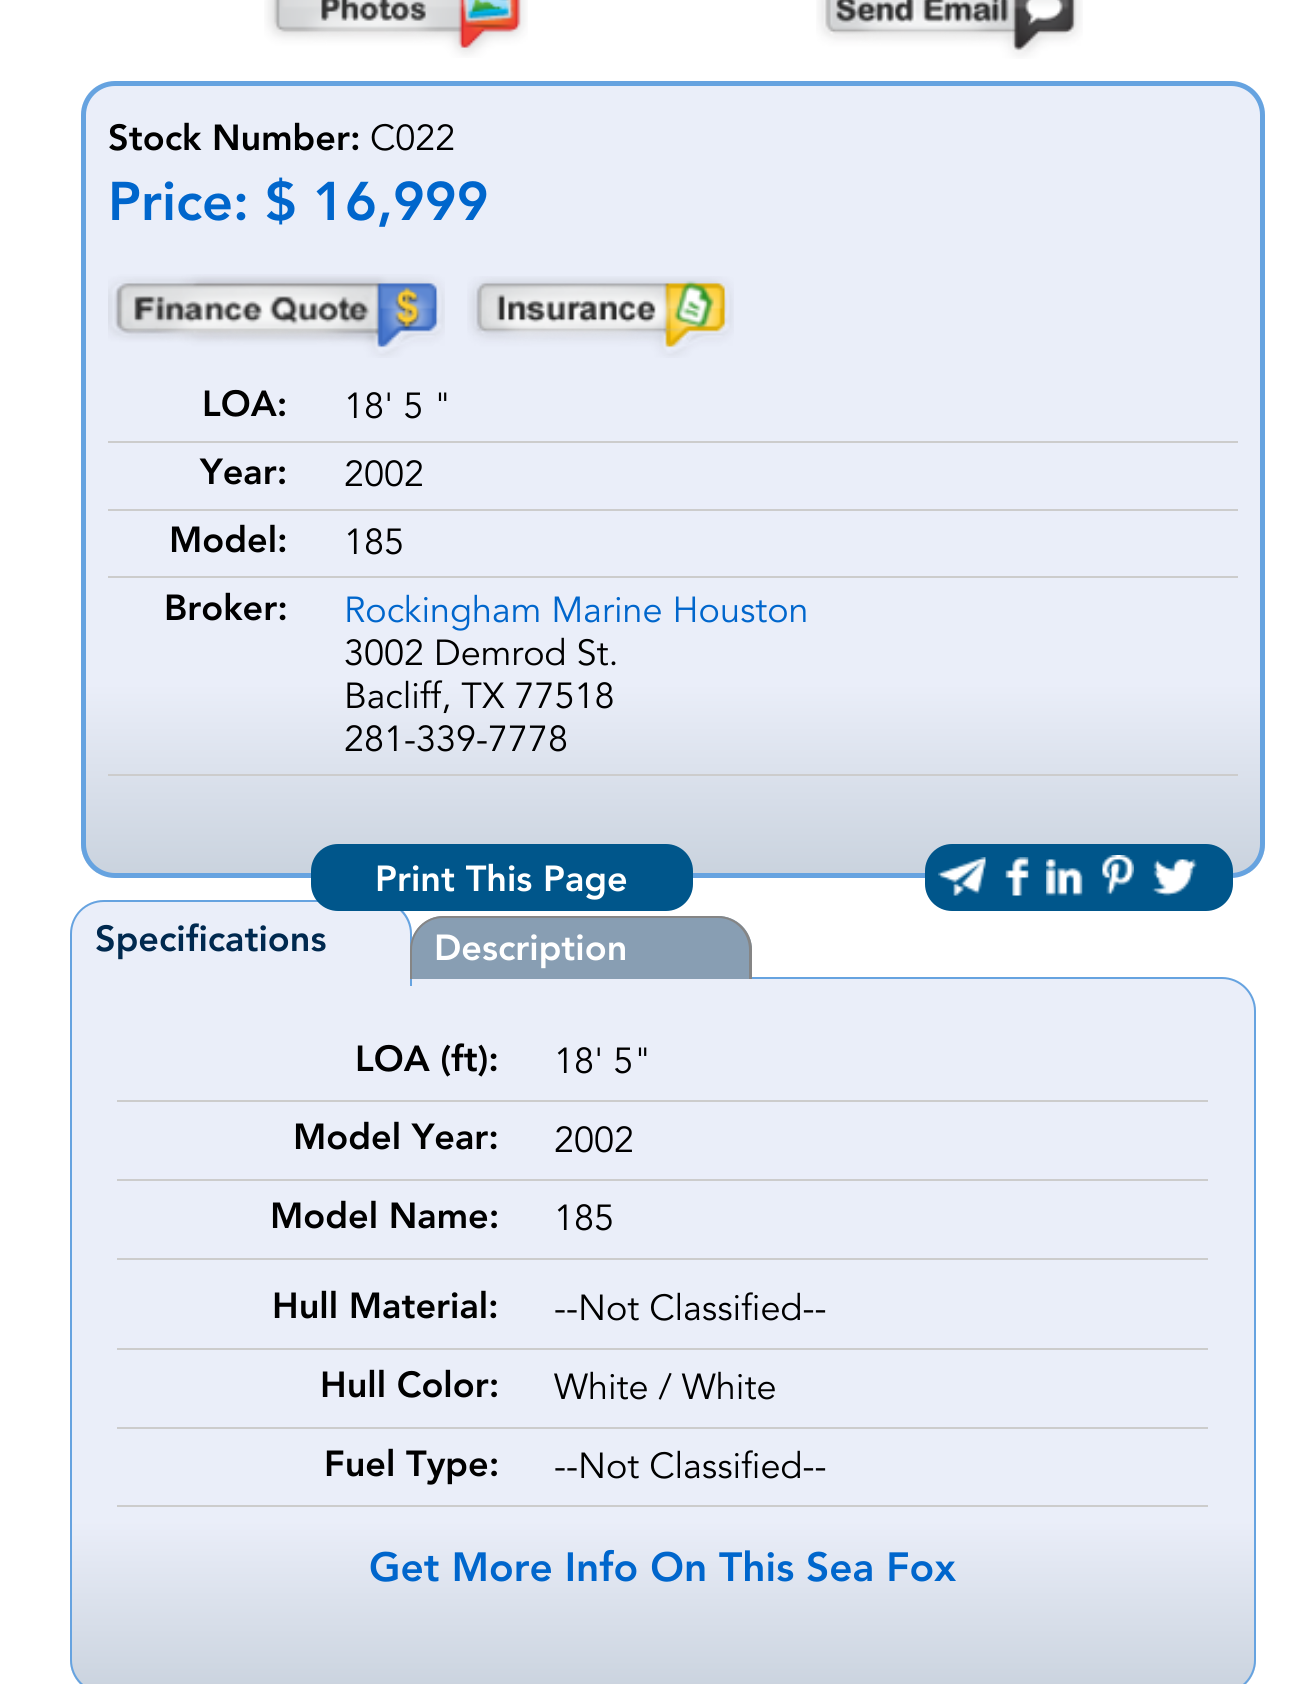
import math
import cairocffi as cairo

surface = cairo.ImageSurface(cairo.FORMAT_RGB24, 1300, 1684)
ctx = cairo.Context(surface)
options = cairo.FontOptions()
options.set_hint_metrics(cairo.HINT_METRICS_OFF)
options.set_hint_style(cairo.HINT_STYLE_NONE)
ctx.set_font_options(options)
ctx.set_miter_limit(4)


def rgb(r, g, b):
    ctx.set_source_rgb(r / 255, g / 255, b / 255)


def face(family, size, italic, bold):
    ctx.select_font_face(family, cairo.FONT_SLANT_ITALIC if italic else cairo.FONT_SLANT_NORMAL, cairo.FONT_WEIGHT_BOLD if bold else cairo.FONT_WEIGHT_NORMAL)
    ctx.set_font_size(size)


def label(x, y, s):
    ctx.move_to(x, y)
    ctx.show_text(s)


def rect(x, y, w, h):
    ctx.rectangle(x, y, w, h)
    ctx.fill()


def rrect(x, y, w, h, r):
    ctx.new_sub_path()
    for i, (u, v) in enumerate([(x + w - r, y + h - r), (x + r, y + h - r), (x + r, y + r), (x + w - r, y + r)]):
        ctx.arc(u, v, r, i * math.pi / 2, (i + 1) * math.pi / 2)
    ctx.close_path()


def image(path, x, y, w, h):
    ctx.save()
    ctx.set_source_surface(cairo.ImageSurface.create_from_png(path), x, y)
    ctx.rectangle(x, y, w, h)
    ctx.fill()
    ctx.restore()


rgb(255, 255, 255)
ctx.paint()
image('image0.png', 264, 0, 264, 58)
image('image1.png', 816, 0, 267, 59)
ctx.save()
rrect(81, 81, 1184, 797, 34)
ctx.clip()
gradient = cairo.LinearGradient(673, 85, 673, 873)
gradient.add_color_stop_rgba(0.76, 0.918, 0.933, 0.976, 1)
gradient.add_color_stop_rgba(1, 0.792, 0.827, 0.871, 1)
ctx.set_source(gradient)
rect(81, 86, 1184, 787)
ctx.restore()
rrect(83.5, 83.5, 1179, 792, 31.5)
rgb(102, 163, 224)
ctx.set_line_width(5)
ctx.stroke()
face('Avenir Black', 36, 0, 0)
rgb(0, 0, 0)
label(108, 150, 'Stock Number:')
face('Avenir', 36, 0, 0)
label(370, 150, 'C022')
face('Avenir Black', 54, 0, 0)
rgb(0, 102, 204)
label(108, 220, 'Price: $ 16,999')
image('image2.png', 108, 274, 337, 84)
image('image3.png', 467, 276, 267, 82)
rgb(204, 204, 204)
rect(108, 441, 1130, 2)
face('Avenir Black', 36, 0, 0)
rgb(0, 0, 0)
label(202, 416, 'LOA:')
face('Avenir', 36, 0, 0)
label(344, 418, '18\' 5 "')
rgb(204, 204, 204)
rect(108, 509, 1130, 2)
face('Avenir Black', 36, 0, 0)
rgb(0, 0, 0)
label(200, 484, 'Year:')
face('Avenir', 36, 0, 0)
label(344, 486, '2002')
rgb(204, 204, 204)
rect(108, 576, 1130, 2)
face('Avenir Black', 36, 0, 0)
rgb(0, 0, 0)
label(169, 552, 'Model:')
face('Avenir', 36, 0, 0)
label(344, 554, '185')
rgb(204, 204, 204)
rect(108, 774, 1130, 2)
face('Avenir Black', 36, 0, 0)
rgb(0, 0, 0)
label(164, 620, 'Broker:')
face('Avenir', 36, 0, 0)
rgb(0, 102, 204)
label(344, 622, 'Rockingham Marine Houston')
rgb(0, 0, 0)
label(344, 665, '3002 Demrod St.')
label(344, 708, 'Bacliff, TX 77518')
label(344, 751, '281-339-7778')
ctx.save()
ctx.new_path()
ctx.move_to(70, 977)
ctx.line_to(1222, 977)
ctx.curve_to(1241, 977, 1256, 992, 1256, 1011)
ctx.line_to(1256, 1660)
ctx.curve_to(1256, 1679, 1241, 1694, 1222, 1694)
ctx.line_to(104, 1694)
ctx.curve_to(85, 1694, 70, 1679, 70, 1660)
ctx.close_path()
ctx.clip()
gradient = cairo.LinearGradient(663, 979, 663, 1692)
gradient.add_color_stop_rgba(0.76, 0.918, 0.933, 0.976, 1)
gradient.add_color_stop_rgba(1, 0.792, 0.827, 0.871, 1)
ctx.set_source(gradient)
rect(70, 979, 1186, 705)
ctx.restore()
ctx.new_path()
ctx.move_to(71, 978)
ctx.line_to(1222, 978)
ctx.curve_to(1240, 978, 1255, 993, 1255, 1011)
ctx.line_to(1255, 1660)
ctx.curve_to(1255, 1678, 1240, 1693, 1222, 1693)
ctx.line_to(104, 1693)
ctx.curve_to(86, 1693, 71, 1678, 71, 1660)
ctx.close_path()
rgb(102, 163, 224)
ctx.set_line_width(2)
ctx.stroke()
rgb(234, 238, 249)
ctx.new_path()
ctx.move_to(104, 900)
ctx.line_to(378, 900)
ctx.curve_to(397, 900, 412, 915, 412, 934)
ctx.line_to(412, 986)
ctx.line_to(70, 986)
ctx.line_to(70, 934)
ctx.curve_to(70, 915, 85, 900, 104, 900)
ctx.close_path()
ctx.fill()
rgb(102, 163, 224)
ctx.set_fill_rule(cairo.FILL_RULE_EVEN_ODD)
ctx.new_path()
ctx.move_to(104, 900)
ctx.line_to(378, 900)
ctx.curve_to(397, 900, 412, 915, 412, 934)
ctx.line_to(412, 986)
ctx.line_to(70, 986)
ctx.line_to(70, 934)
ctx.curve_to(70, 915, 85, 900, 104, 900)
ctx.close_path()
ctx.move_to(104, 902)
ctx.line_to(378, 902)
ctx.curve_to(395, 902, 410, 916, 410, 934)
ctx.line_to(410, 986)
ctx.line_to(72, 986)
ctx.line_to(72, 934)
ctx.curve_to(72, 916, 86, 902, 104, 902)
ctx.close_path()
ctx.fill()
rgb(0, 86, 139)
rrect(311, 844, 382, 67, 27)
ctx.fill()
face('Avenir Black', 36, 0, 0)
rgb(255, 255, 255)
label(375, 891, 'Print This Page')
rgb(0, 86, 139)
rrect(925, 844, 308, 67, 27)
ctx.fill()
image('image4.png', 938, 857, 48, 39)
image('image5.png', 1005, 857, 24, 39)
image('image6.png', 1046, 859, 37, 37)
image('image7.png', 1102, 855, 32, 41)
image('image8.png', 1152, 859, 45, 37)
rgb(0, 41, 79)
label(95, 951, 'Specifications')
rgb(136, 158, 179)
ctx.new_path()
ctx.move_to(444, 916)
ctx.line_to(718, 916)
ctx.curve_to(737, 916, 752, 931, 752, 950)
ctx.line_to(752, 979)
ctx.line_to(410, 979)
ctx.line_to(410, 950)
ctx.curve_to(410, 931, 425, 916, 444, 916)
ctx.close_path()
ctx.fill()
rgb(133, 133, 133)
ctx.new_path()
ctx.move_to(443, 916)
ctx.line_to(718, 916)
ctx.curve_to(736, 916, 752, 931, 752, 950)
ctx.line_to(752, 979)
ctx.line_to(410, 979)
ctx.line_to(410, 950)
ctx.curve_to(410, 931, 425, 916, 443, 916)
ctx.close_path()
ctx.move_to(443, 918)
ctx.line_to(718, 918)
ctx.curve_to(735, 918, 749, 932, 749, 950)
ctx.line_to(749, 979)
ctx.line_to(412, 979)
ctx.line_to(412, 950)
ctx.curve_to(412, 932, 426, 918, 443, 918)
ctx.close_path()
ctx.fill()
rgb(255, 255, 255)
label(434, 960, 'Description')
rgb(204, 204, 204)
rect(117, 1100, 1091, 2)
rgb(0, 0, 0)
label(355, 1071, 'LOA (ft):')
face('Avenir', 36, 0, 0)
label(554, 1073, '18\' 5"')
rgb(204, 204, 204)
rect(117, 1179, 1091, 2)
face('Avenir Black', 36, 0, 0)
rgb(0, 0, 0)
label(293, 1149, 'Model Year:')
face('Avenir', 36, 0, 0)
label(554, 1152, '2002')
rgb(204, 204, 204)
rect(117, 1258, 1091, 2)
face('Avenir Black', 36, 0, 0)
rgb(0, 0, 0)
label(270, 1228, 'Model Name:')
face('Avenir', 36, 0, 0)
label(554, 1230, '185')
rgb(204, 204, 204)
rect(117, 1348, 1091, 2)
face('Avenir Black', 36, 0, 0)
rgb(0, 0, 0)
label(272, 1318, 'Hull Material:')
face('Avenir', 36, 0, 0)
label(554, 1320, '--Not Classified--')
rgb(204, 204, 204)
rect(117, 1427, 1091, 2)
face('Avenir Black', 36, 0, 0)
rgb(0, 0, 0)
label(320, 1397, 'Hull Color:')
face('Avenir', 36, 0, 0)
label(554, 1399, 'White / White')
rgb(204, 204, 204)
rect(117, 1505, 1091, 2)
face('Avenir Black', 36, 0, 0)
rgb(0, 0, 0)
label(324, 1476, 'Fuel Type:')
face('Avenir', 36, 0, 0)
label(554, 1478, '--Not Classified--')
face('Avenir Black', 40.5, 0, 0)
rgb(0, 102, 204)
label(369, 1581, 'Get More Info On This Sea Fox')
surface.write_to_png('render.png')
